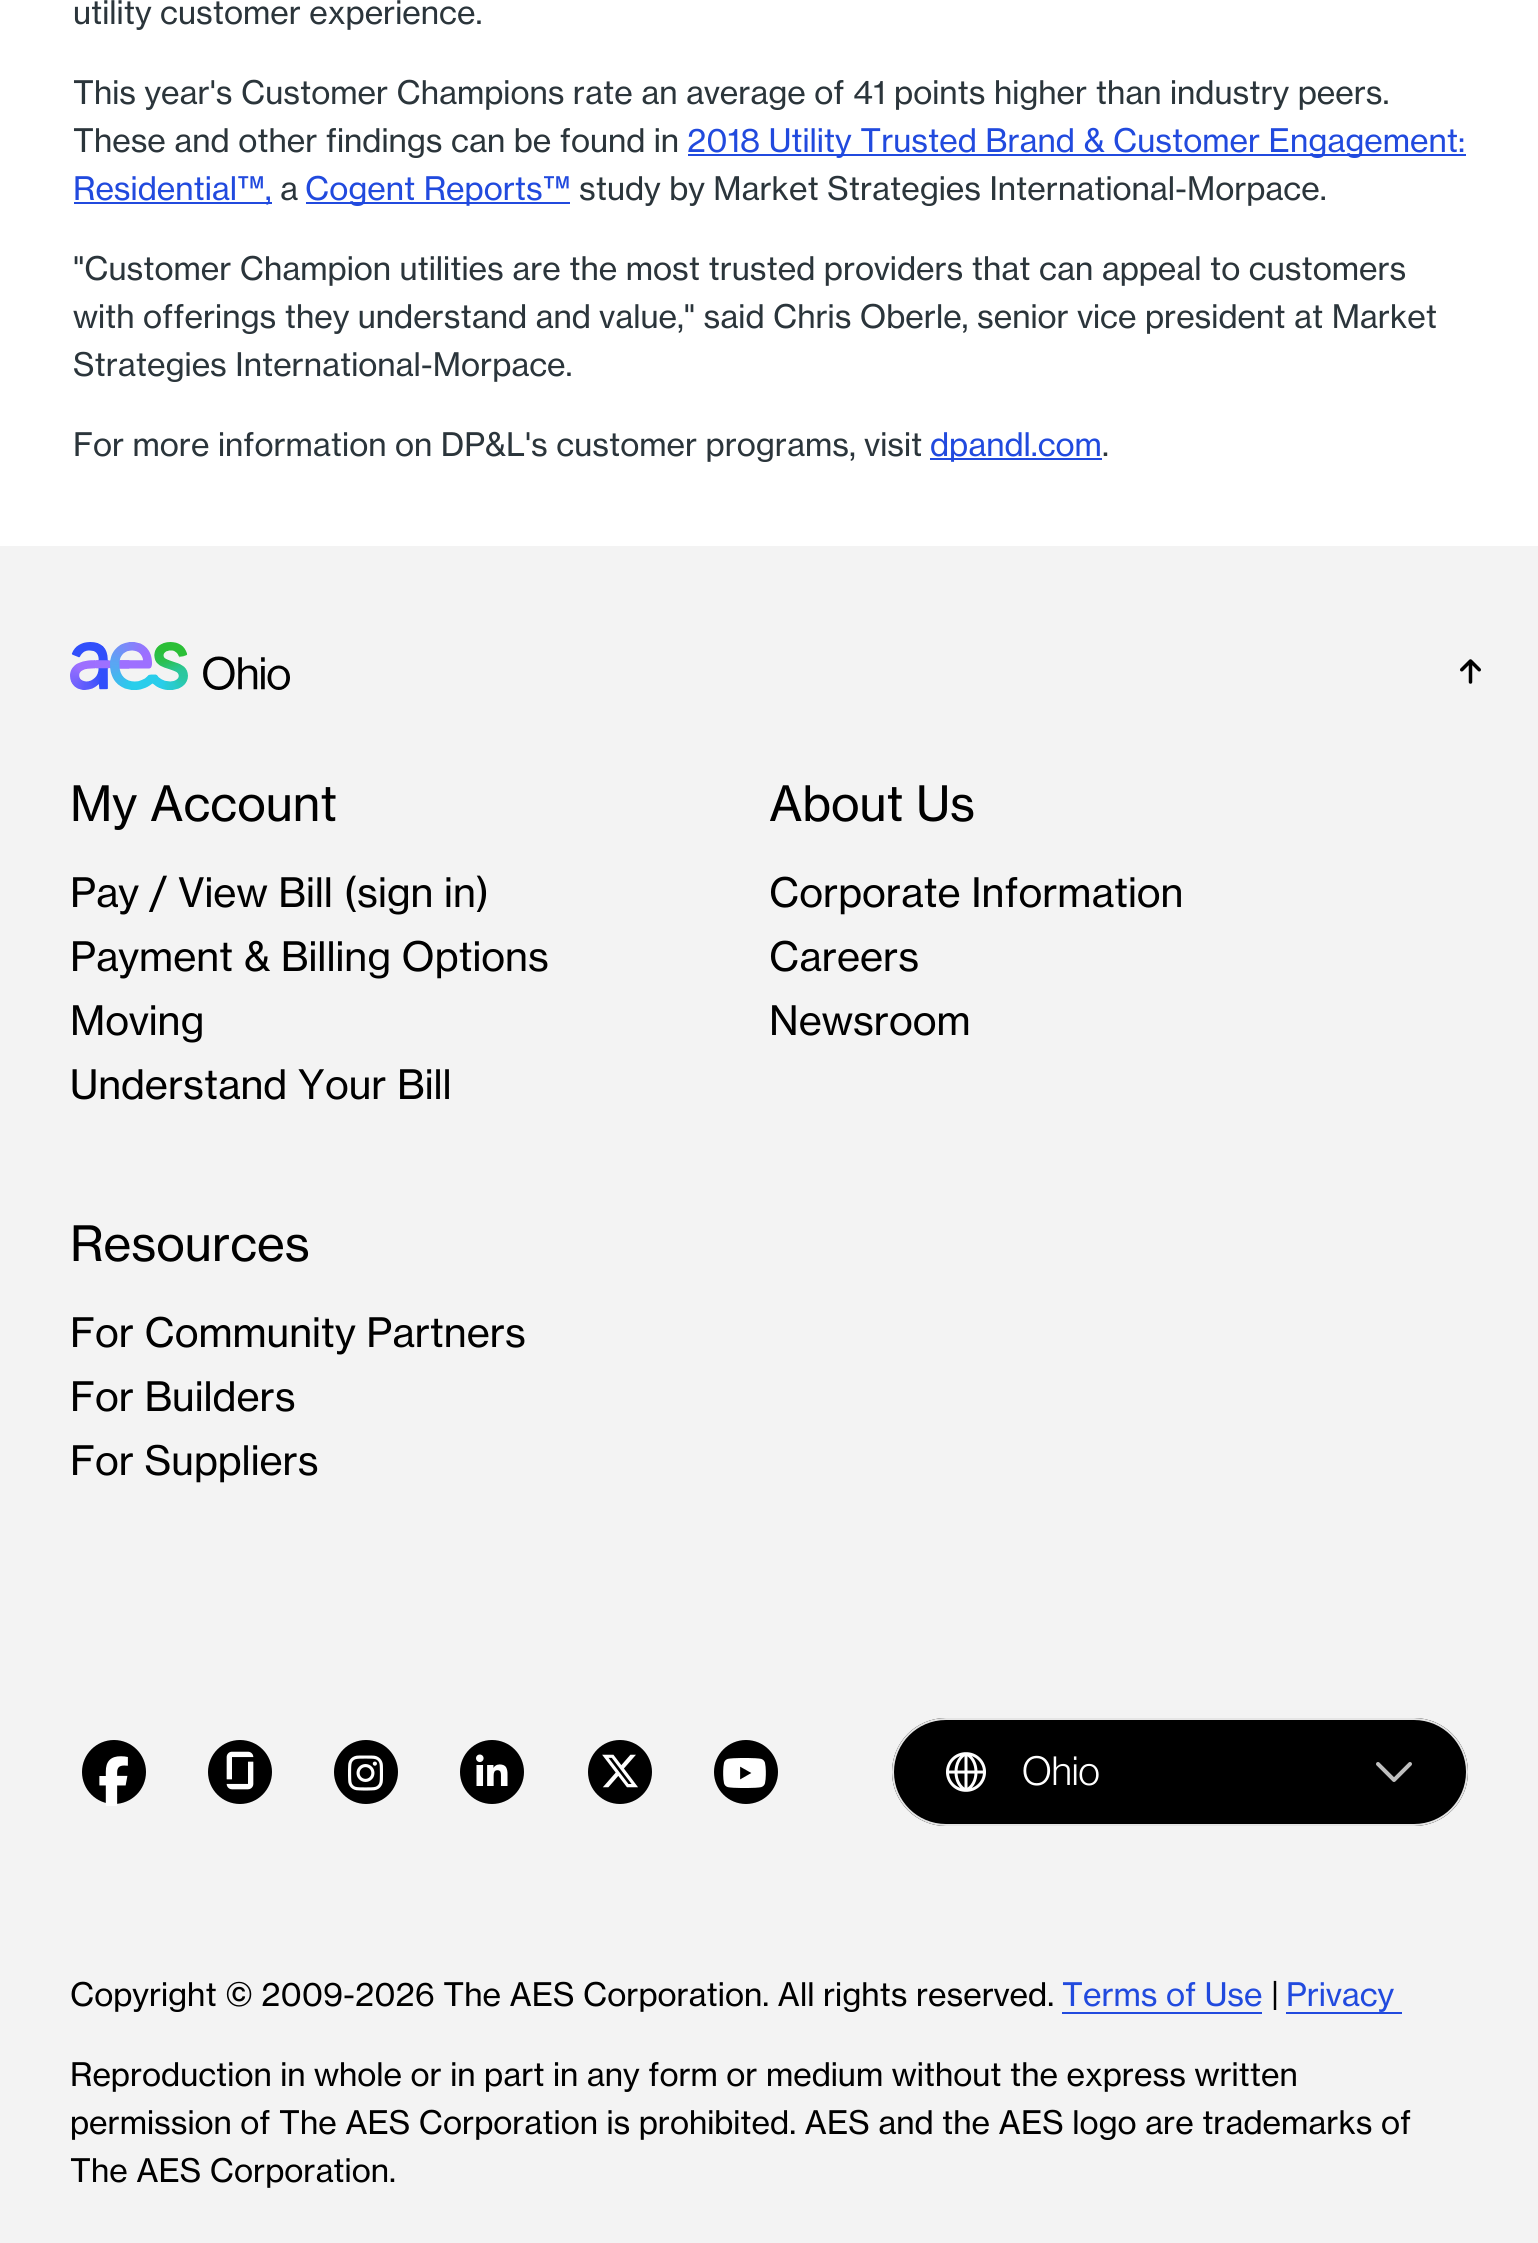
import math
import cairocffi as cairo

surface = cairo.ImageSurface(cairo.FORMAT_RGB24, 1538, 2243)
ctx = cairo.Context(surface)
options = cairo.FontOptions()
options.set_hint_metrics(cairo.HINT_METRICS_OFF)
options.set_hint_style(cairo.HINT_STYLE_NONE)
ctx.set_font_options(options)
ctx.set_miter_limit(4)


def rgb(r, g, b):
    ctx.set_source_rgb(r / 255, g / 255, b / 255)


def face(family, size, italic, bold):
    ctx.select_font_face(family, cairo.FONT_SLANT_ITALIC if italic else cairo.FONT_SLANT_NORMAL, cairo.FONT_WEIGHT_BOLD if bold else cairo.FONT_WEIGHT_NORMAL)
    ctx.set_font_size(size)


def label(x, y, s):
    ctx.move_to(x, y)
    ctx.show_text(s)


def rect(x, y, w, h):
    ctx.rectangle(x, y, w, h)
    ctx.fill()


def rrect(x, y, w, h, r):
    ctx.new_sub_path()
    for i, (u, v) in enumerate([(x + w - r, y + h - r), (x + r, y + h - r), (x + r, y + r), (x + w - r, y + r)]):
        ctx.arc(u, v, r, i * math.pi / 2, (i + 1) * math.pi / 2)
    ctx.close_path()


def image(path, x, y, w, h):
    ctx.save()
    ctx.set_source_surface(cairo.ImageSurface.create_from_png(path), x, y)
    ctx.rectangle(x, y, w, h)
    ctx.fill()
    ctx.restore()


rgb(255, 255, 255)
ctx.paint()
face('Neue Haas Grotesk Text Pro', 32, 0, 0)
rgb(43, 53, 59)
label(73, 24, 'utility customer experience.')
label(73, 104, 'This year\'s Customer Champions rate an average of 41 points higher than industry peers.')
label(73, 152, 'These and other findings can be found in')
rgb(33, 74, 222)
rect(688, 154, 778, 2)
label(687, 152, '2018 Utility Trusted Brand & Customer Engagement:')
rect(74, 202, 198, 2)
label(73, 200, 'Residential™,')
rgb(43, 53, 59)
label(280, 200, 'a')
rgb(33, 74, 222)
rect(306, 202, 264, 2)
label(305, 200, 'Cogent Reports™')
rgb(43, 53, 59)
label(579, 200, 'study by Market Strategies International-Morpace.')
label(73, 280, '"Customer Champion utilities are the most trusted providers that can appeal to customers')
label(73, 328, 'with offerings they understand and value," said Chris Oberle, senior vice president at Market')
label(73, 376, 'Strategies International-Morpace.')
label(73, 456, 'For more information on DP&L\'s customer programs, visit')
rgb(33, 74, 222)
rect(930, 458, 172, 2)
label(930, 456, 'dpandl.com')
rgb(43, 53, 59)
label(1102, 456, '.')
rgb(243, 243, 243)
rect(0, 546, 1538, 1697)
image('image0.png', 70, 642, 220, 48)
image('image1.png', 1460, 659, 21, 25)
face('Neue Haas Grotesk Text Pro', 48, 0, 0)
rgb(0, 0, 0)
label(70, 821, 'My Account')
face('Neue Haas Grotesk Text Pro', 40, 0, 0)
label(70, 907, 'Pay / View Bill (sign in)')
label(70, 971, 'Payment & Billing Options')
label(70, 1035, 'Moving')
label(70, 1099, 'Understand Your Bill')
face('Neue Haas Grotesk Text Pro', 48, 0, 0)
label(769, 821, 'About Us')
face('Neue Haas Grotesk Text Pro', 40, 0, 0)
label(769, 907, 'Corporate Information')
label(769, 971, 'Careers')
label(769, 1035, 'Newsroom')
face('Neue Haas Grotesk Text Pro', 48, 0, 0)
label(70, 1261, 'Resources')
face('Neue Haas Grotesk Text Pro', 40, 0, 0)
label(70, 1347, 'For Community Partners')
label(70, 1411, 'For Builders')
label(70, 1475, 'For Suppliers')
ctx.new_path()
ctx.arc(114, 1772, 32, 0, 2 * math.pi)
ctx.fill()
image('image2.png', 99, 1756, 29, 50)
ctx.arc(240, 1772, 32, 0, 2 * math.pi)
ctx.fill()
image('image3.png', 226, 1751, 28, 39)
ctx.arc(366, 1772, 32, 0, 2 * math.pi)
ctx.fill()
image('image4.png', 348, 1755, 35, 36)
ctx.arc(492, 1772, 32, 0, 2 * math.pi)
ctx.fill()
image('image5.png', 476, 1754, 32, 32)
ctx.arc(620, 1772, 32, 0, 2 * math.pi)
ctx.fill()
image('image6.png', 602, 1754, 36, 34)
ctx.arc(746, 1772, 32, 0, 2 * math.pi)
ctx.fill()
image('image7.png', 723, 1758, 43, 30)
rrect(892, 1718, 576, 108, 54)
ctx.fill()
ctx.new_path()
ctx.move_to(1378, 1764)
ctx.line_to(1394, 1780)
ctx.line_to(1410, 1764)
rgb(191, 191, 191)
ctx.set_line_width(4)
ctx.set_line_cap(cairo.LINE_CAP_ROUND)
ctx.set_line_join(cairo.LINE_JOIN_ROUND)
ctx.stroke()
rrect(893, 1719, 574, 106, 53)
rgb(229, 229, 229)
ctx.set_line_width(2)
ctx.set_line_cap(cairo.LINE_CAP_BUTT)
ctx.set_line_join(cairo.LINE_JOIN_MITER)
ctx.stroke()
image('image8.png', 946, 1752, 40, 40)
face('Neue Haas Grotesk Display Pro', 40, 0, 0)
rgb(255, 255, 255)
label(1022, 1785, 'Ohio')
face('Neue Haas Grotesk Text Pro', 32, 0, 0)
rgb(0, 0, 0)
label(70, 2006, 'Copyright © 2009-2026 The AES Corporation. All rights reserved.')
rgb(33, 74, 222)
label(1062, 2006, 'Terms of Use')
rect(1062, 2012, 200, 2)
rgb(0, 0, 0)
label(1271, 2006, '|')
rgb(33, 74, 222)
label(1286, 2006, 'Privacy')
rect(1286, 2012, 116, 2)
rgb(0, 0, 0)
label(70, 2086, 'Reproduction in whole or in part in any form or medium without the express written')
label(70, 2134, 'permission of The AES Corporation is prohibited. AES and the AES logo are trademarks of')
label(70, 2182, 'The AES Corporation.')
surface.write_to_png('render.png')
